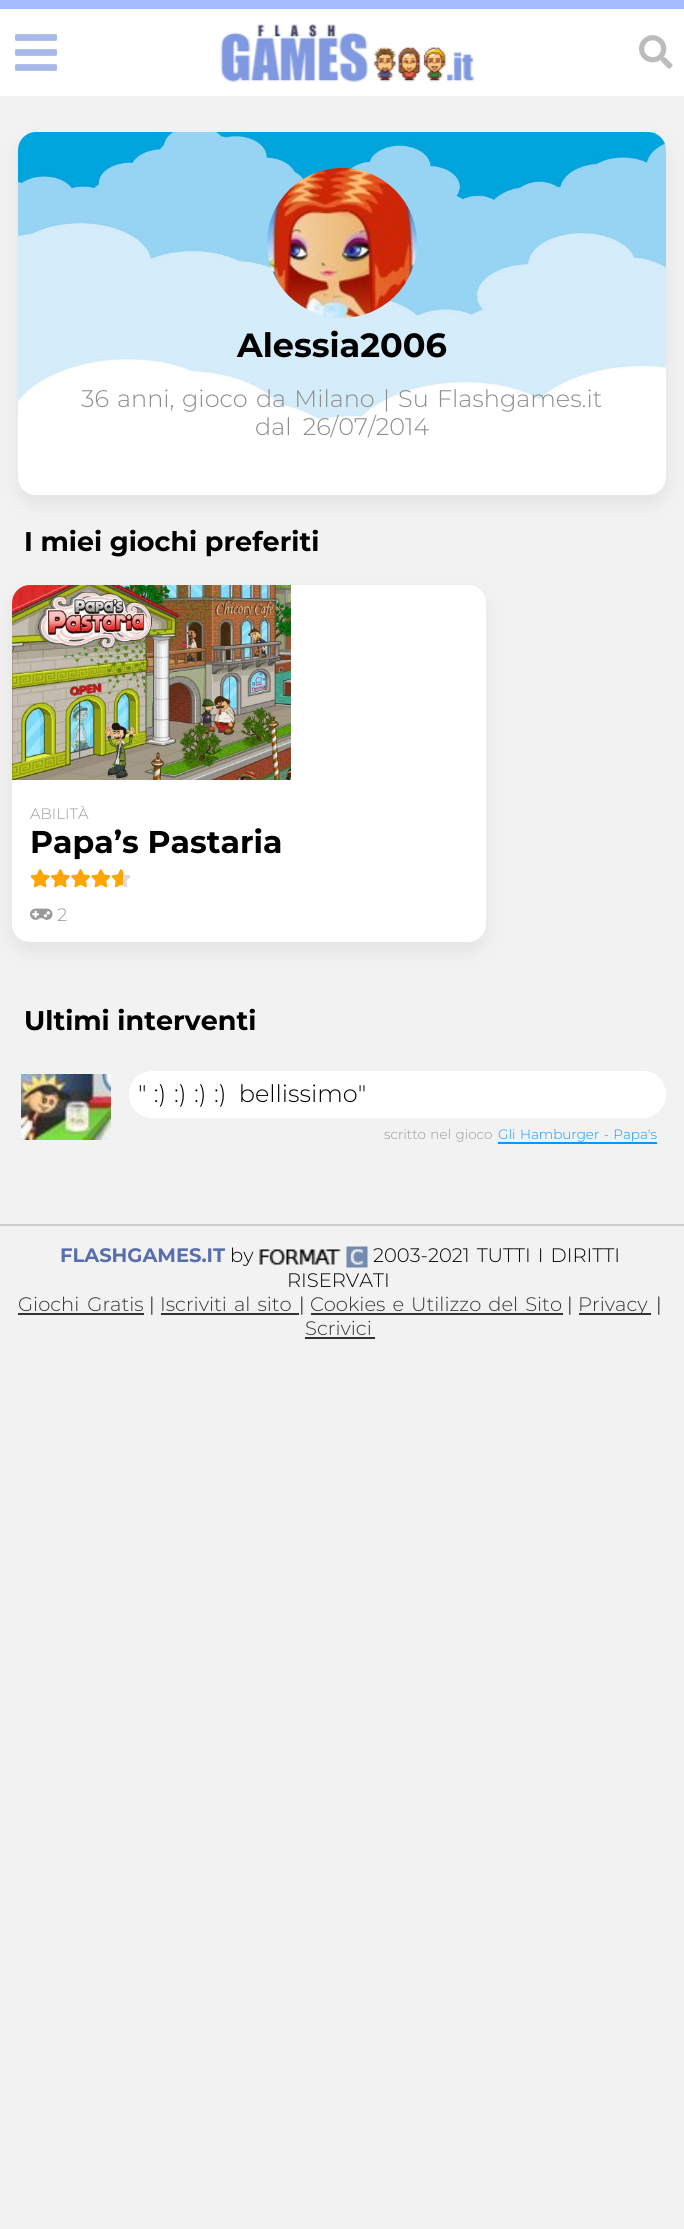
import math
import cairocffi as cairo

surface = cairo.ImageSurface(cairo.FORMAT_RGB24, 684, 2229)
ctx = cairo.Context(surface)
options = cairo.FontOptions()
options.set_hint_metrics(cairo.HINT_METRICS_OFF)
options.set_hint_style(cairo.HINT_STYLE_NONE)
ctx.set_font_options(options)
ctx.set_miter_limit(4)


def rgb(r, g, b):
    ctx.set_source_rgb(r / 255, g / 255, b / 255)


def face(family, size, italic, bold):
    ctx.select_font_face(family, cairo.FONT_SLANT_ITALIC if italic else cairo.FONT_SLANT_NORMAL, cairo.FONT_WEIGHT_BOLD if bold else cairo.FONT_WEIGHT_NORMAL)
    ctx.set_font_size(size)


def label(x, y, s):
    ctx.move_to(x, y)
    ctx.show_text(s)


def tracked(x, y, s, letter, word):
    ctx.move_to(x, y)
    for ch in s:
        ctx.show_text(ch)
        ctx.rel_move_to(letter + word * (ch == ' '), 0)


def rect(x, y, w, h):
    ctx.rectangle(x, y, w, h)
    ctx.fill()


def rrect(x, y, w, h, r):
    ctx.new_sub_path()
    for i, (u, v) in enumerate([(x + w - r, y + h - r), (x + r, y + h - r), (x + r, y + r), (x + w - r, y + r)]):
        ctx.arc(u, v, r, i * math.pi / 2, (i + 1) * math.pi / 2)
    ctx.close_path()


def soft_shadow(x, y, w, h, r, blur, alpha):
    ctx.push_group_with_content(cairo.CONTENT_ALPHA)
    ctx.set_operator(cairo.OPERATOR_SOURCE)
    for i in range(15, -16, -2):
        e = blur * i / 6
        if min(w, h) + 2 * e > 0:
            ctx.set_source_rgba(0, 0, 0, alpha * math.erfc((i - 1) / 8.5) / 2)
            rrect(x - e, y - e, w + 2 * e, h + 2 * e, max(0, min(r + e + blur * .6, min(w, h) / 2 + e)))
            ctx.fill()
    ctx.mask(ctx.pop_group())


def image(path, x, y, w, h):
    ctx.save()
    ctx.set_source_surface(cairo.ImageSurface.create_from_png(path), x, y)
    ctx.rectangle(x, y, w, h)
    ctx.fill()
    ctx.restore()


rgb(242, 242, 242)
ctx.paint()
rgb(255, 255, 255)
rect(0, 9, 684, 87)
rgb(164, 187, 255)
rect(0, 0, 684, 9)
image('image0.png', 15, 34, 42, 37)
image('image1.png', 220, 24, 255, 59)
image('image2.png', 639, 35, 34, 34)
rgb(102, 102, 102)
soft_shadow(18, 141, 648, 363, 18, 10, 0.12)
image('image3.png', 18, 132, 648, 363)
image('image4.png', 267, 168, 150, 150)
face('Montserrat', 33.5, 0, 1)
rgb(0, 0, 0)
label(237, 357, 'Alessia2006')
face('Montserrat Light', 24, 0, 0)
rgb(141, 141, 140)
tracked(81, 407, '36 anni,', 0, 2)
tracked(182, 407, 'gioco da Milano | Su Flashgames.it', 0, 2)
tracked(255, 435, 'dal 26/07/2014', 0, 5)
face('Montserrat', 27, 0, 1)
rgb(0, 0, 0)
label(24, 551, 'I miei giochi preferiti')
rgb(102, 102, 102)
soft_shadow(12, 594, 474, 357, 18, 10, 0.12)
rgb(255, 255, 255)
rrect(12, 585, 474, 357, 18)
ctx.fill()
image('image5.png', 12, 585, 279, 195)
face('Montserrat Light', 15, 0, 0)
rgb(153, 153, 153)
label(30, 819, 'ABILITÀ')
face('Montserrat', 31.5, 0, 1)
rgb(0, 0, 0)
label(30, 853, 'Papa’s Pastaria')
image('image6.png', 30, 869, 101, 19)
image('image7.png', 30, 869, 93, 19)
image('image8.png', 30, 908, 23, 12)
face('Montserrat Light', 18, 0, 0)
rgb(153, 153, 153)
label(57, 921, '2')
face('Montserrat', 27, 0, 1)
rgb(0, 0, 0)
label(24, 1030, 'Ultimi interventi')
image('image9.png', 21, 1074, 90, 66)
rgb(255, 255, 255)
rrect(129, 1071, 537, 47, 23.5)
ctx.fill()
face('Montserrat Light', 24, 0, 0)
rgb(0, 0, 0)
tracked(138, 1102, '" :)', 0, 1)
label(174, 1102, ':)')
label(194, 1102, ':)')
tracked(214, 1102, ':) bellissimo"', 0, 6)
face('Montserrat Light', 13.5, 0, 0)
rgb(153, 153, 153)
tracked(384, 1139, 'scritto nel gioco', 0, 1)
rgb(0, 153, 255)
tracked(498, 1139, 'Gli Hamburger - Papa\'s', 0, 1)
rect(498, 1142, 159, 2)
rgb(204, 204, 204)
rect(0, 1224, 684, 2)
face('Montserrat', 19.5, 0, 1)
rgb(88, 110, 173)
label(60, 1262, 'FLASHGAMES.IT')
face('Montserrat Light', 19.5, 0, 0)
rgb(0, 0, 0)
label(230, 1262, 'by')
image('image10.png', 259, 1246, 109, 22)
tracked(373, 1262, '2003-2021 TUTTI I DIRITTI', 0, 2)
label(287, 1287, 'RISERVATI')
rgb(51, 51, 51)
tracked(18, 1311, 'Giochi Gratis', 0, 3)
rect(18, 1313, 126, 2)
rgb(0, 0, 0)
label(149, 1311, '|')
rgb(51, 51, 51)
tracked(160, 1311, 'Iscriviti al sito', 0, 2)
rect(161, 1313, 138, 2)
rgb(0, 0, 0)
label(299, 1311, '|')
rgb(51, 51, 51)
tracked(310, 1311, 'Cookies e Utilizzo del Sito', 0, 2)
rect(311, 1313, 252, 2)
rgb(0, 0, 0)
label(567, 1311, '|')
rgb(51, 51, 51)
rect(579, 1313, 72, 2)
label(578, 1311, 'Privacy')
rgb(0, 0, 0)
label(656, 1311, '|')
rgb(51, 51, 51)
label(305, 1335, 'Scrivici')
rect(305, 1337, 70, 2)
surface.write_to_png('render.png')
